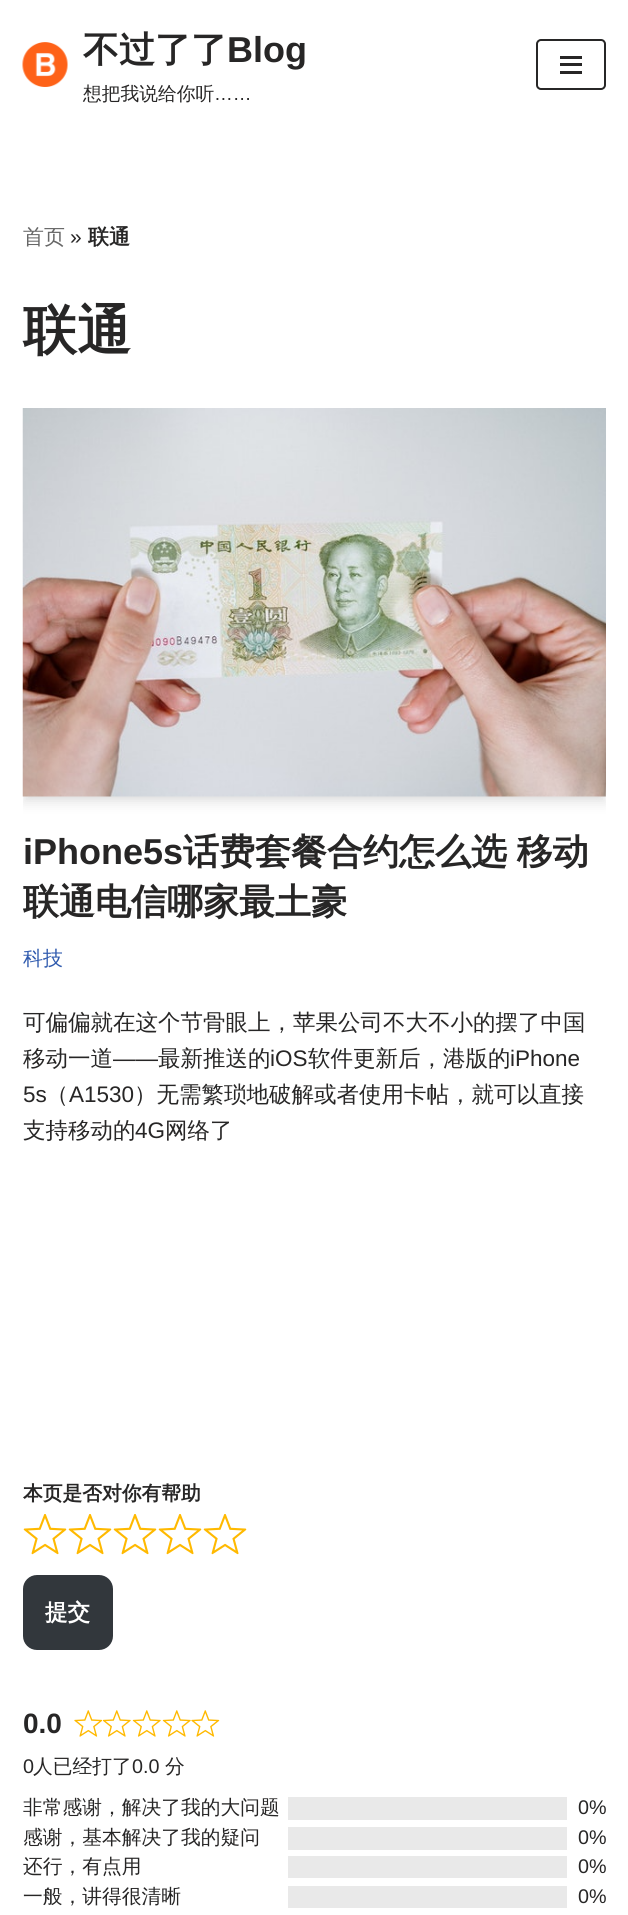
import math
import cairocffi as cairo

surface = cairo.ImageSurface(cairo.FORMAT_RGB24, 628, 1915)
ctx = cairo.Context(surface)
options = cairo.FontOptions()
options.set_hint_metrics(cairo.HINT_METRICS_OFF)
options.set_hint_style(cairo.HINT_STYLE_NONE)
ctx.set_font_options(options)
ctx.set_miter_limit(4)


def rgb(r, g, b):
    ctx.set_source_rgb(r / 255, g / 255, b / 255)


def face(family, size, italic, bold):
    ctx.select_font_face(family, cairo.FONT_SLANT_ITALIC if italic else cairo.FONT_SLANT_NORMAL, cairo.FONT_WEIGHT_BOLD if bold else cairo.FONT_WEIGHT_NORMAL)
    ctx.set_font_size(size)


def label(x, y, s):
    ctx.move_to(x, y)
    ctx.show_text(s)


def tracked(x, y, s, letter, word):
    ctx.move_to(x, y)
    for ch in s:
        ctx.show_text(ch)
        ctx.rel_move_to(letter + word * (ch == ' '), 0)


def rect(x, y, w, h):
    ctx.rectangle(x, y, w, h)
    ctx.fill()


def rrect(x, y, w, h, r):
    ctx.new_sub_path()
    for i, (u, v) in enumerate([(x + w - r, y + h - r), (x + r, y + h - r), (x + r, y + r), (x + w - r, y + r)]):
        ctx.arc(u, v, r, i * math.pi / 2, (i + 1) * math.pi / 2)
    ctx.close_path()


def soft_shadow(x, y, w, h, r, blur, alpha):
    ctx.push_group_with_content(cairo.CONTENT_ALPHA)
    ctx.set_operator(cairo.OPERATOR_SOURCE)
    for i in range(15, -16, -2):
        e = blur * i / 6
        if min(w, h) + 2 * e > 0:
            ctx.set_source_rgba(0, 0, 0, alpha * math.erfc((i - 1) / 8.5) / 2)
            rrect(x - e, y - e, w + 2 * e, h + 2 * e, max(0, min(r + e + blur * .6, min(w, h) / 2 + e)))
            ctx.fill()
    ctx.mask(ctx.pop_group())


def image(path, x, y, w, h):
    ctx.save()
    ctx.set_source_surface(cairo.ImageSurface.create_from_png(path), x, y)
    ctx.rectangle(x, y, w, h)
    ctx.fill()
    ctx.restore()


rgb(255, 255, 255)
ctx.paint()
image('image0.png', 22, 42, 46, 45)
face('WenQuanYi Zen Hei', 36, 0, 1)
rgb(39, 38, 38)
label(83, 62, '不过了了')
face('Liberation Sans', 36, 0, 1)
label(227, 62, 'Blog')
face('WenQuanYi Zen Hei Medium', 18.75, 0, 0)
label(83, 100, '想把我说给你听')
face('Liberation Sans', 18.75, 0, 0)
label(214, 100, '……')
rrect(537, 40, 68, 49, 4)
ctx.stroke()
rect(560, 56, 22, 3)
rect(560, 63, 22, 3)
rect(560, 71, 22, 3)
face('WenQuanYi Zen Hei Medium', 21, 0, 0)
rgb(103, 103, 103)
label(23, 244, '首页')
face('Liberation Sans', 21, 0, 0)
rgb(39, 38, 38)
label(70, 244, '»')
face('WenQuanYi Zen Hei', 21, 0, 1)
label(88, 244, '联通')
face('WenQuanYi Zen Hei', 54, 0, 1)
label(23, 349, '联通')
ctx.save()
ctx.rectangle(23, 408, 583, 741)
ctx.clip()
rgb(0, 0, 0)
soft_shadow(23, 414, 583, 389, 0, 6, 0.1)
ctx.restore()
rgb(0, 0, 0)
soft_shadow(30, 420, 569, 374, 0, 4.5, 0.1)
image('image1.png', 22, 408, 584, 389)
face('Liberation Sans', 36, 0, 1)
rgb(39, 38, 38)
label(23, 864, 'iPhone5s')
face('WenQuanYi Zen Hei', 36, 0, 1)
tracked(183, 864, '话费套餐合约怎么选 移动', 0, -1)
ctx.save()
ctx.rectangle(23, 408, 583, 741)
ctx.clip()
label(23, 914, '联通电信哪家最土豪')
ctx.restore()
face('WenQuanYi Zen Hei Medium', 20, 0, 0)
rgb(47, 90, 174)
label(23, 965, '科技')
face('WenQuanYi Zen Hei Medium', 22.5, 0, 0)
rgb(39, 38, 38)
label(23, 1030, '可偏偏就在这个节骨眼上，苹果公司不大不小的摆了中国')
label(23, 1066, '移动一道')
face('Liberation Sans', 22.5, 0, 0)
label(113, 1066, '——')
face('WenQuanYi Zen Hei Medium', 22.5, 0, 0)
label(158, 1066, '最新推送的')
face('Liberation Sans', 22.5, 0, 0)
label(270, 1066, 'iOS')
face('WenQuanYi Zen Hei Medium', 22.5, 0, 0)
label(308, 1066, '软件更新后，港版的')
face('Liberation Sans', 22.5, 0, 0)
label(510, 1066, 'iPhone')
label(23, 1102, '5s')
face('WenQuanYi Zen Hei Medium', 22.5, 0, 0)
label(46, 1102, '（')
face('Liberation Sans', 22.5, 0, 0)
label(69, 1102, 'A1530')
face('WenQuanYi Zen Hei Medium', 22.5, 0, 0)
label(134, 1102, '）无需繁琐地破解或者使用卡帖，就可以直接')
label(23, 1138, '支持移动的')
face('Liberation Sans', 22.5, 0, 0)
label(135, 1138, '4G')
face('WenQuanYi Zen Hei Medium', 22.5, 0, 0)
label(165, 1138, '网络了')
face('WenQuanYi Zen Hei', 19.75, 0, 1)
label(23, 1500, '本页是否对你有帮助')
image('image2.png', 23, 1514, 44, 41)
image('image2.png', 68, 1514, 44, 41)
image('image2.png', 113, 1514, 44, 41)
image('image2.png', 158, 1514, 44, 41)
image('image2.png', 203, 1514, 44, 41)
rgb(50, 55, 60)
rrect(23, 1575, 90, 75, 14)
ctx.fill()
face('WenQuanYi Zen Hei', 22.5, 0, 1)
rgb(255, 255, 255)
label(45, 1620, '提交')
face('Liberation Sans', 28, 0, 1)
rgb(39, 38, 38)
label(23, 1733, '0.0')
image('image3.png', 74, 1710, 28, 27)
image('image4.png', 102, 1710, 29, 27)
image('image4.png', 132, 1710, 29, 27)
image('image4.png', 162, 1710, 29, 27)
image('image5.png', 191, 1710, 29, 27)
face('Liberation Sans', 19.75, 0, 0)
label(23, 1773, '0')
face('WenQuanYi Zen Hei Medium', 19.75, 0, 0)
label(33, 1773, '人已经打了')
face('Liberation Sans', 19.75, 0, 0)
label(132, 1773, '0.0')
face('WenQuanYi Zen Hei Medium', 19.75, 0, 0)
label(165, 1773, '分')
label(23, 1814, '非常感谢，解决了我的大问题')
rgb(233, 233, 233)
rect(288, 1797, 279, 23)
face('Liberation Sans', 19.75, 0, 0)
rgb(39, 38, 38)
label(578, 1814, '0%')
face('WenQuanYi Zen Hei Medium', 19.75, 0, 0)
label(23, 1844, '感谢，基本解决了我的疑问')
rgb(233, 233, 233)
rect(288, 1827, 279, 23)
face('Liberation Sans', 19.75, 0, 0)
rgb(39, 38, 38)
label(578, 1844, '0%')
face('WenQuanYi Zen Hei Medium', 19.75, 0, 0)
label(23, 1873, '还行，有点用')
rgb(233, 233, 233)
rect(288, 1856, 279, 22)
face('Liberation Sans', 19.75, 0, 0)
rgb(39, 38, 38)
label(578, 1873, '0%')
face('WenQuanYi Zen Hei Medium', 19.75, 0, 0)
label(23, 1903, '一般，讲得很清晰')
rgb(233, 233, 233)
rect(288, 1886, 279, 22)
face('Liberation Sans', 19.75, 0, 0)
rgb(39, 38, 38)
label(578, 1903, '0%')
surface.write_to_png('render.png')
